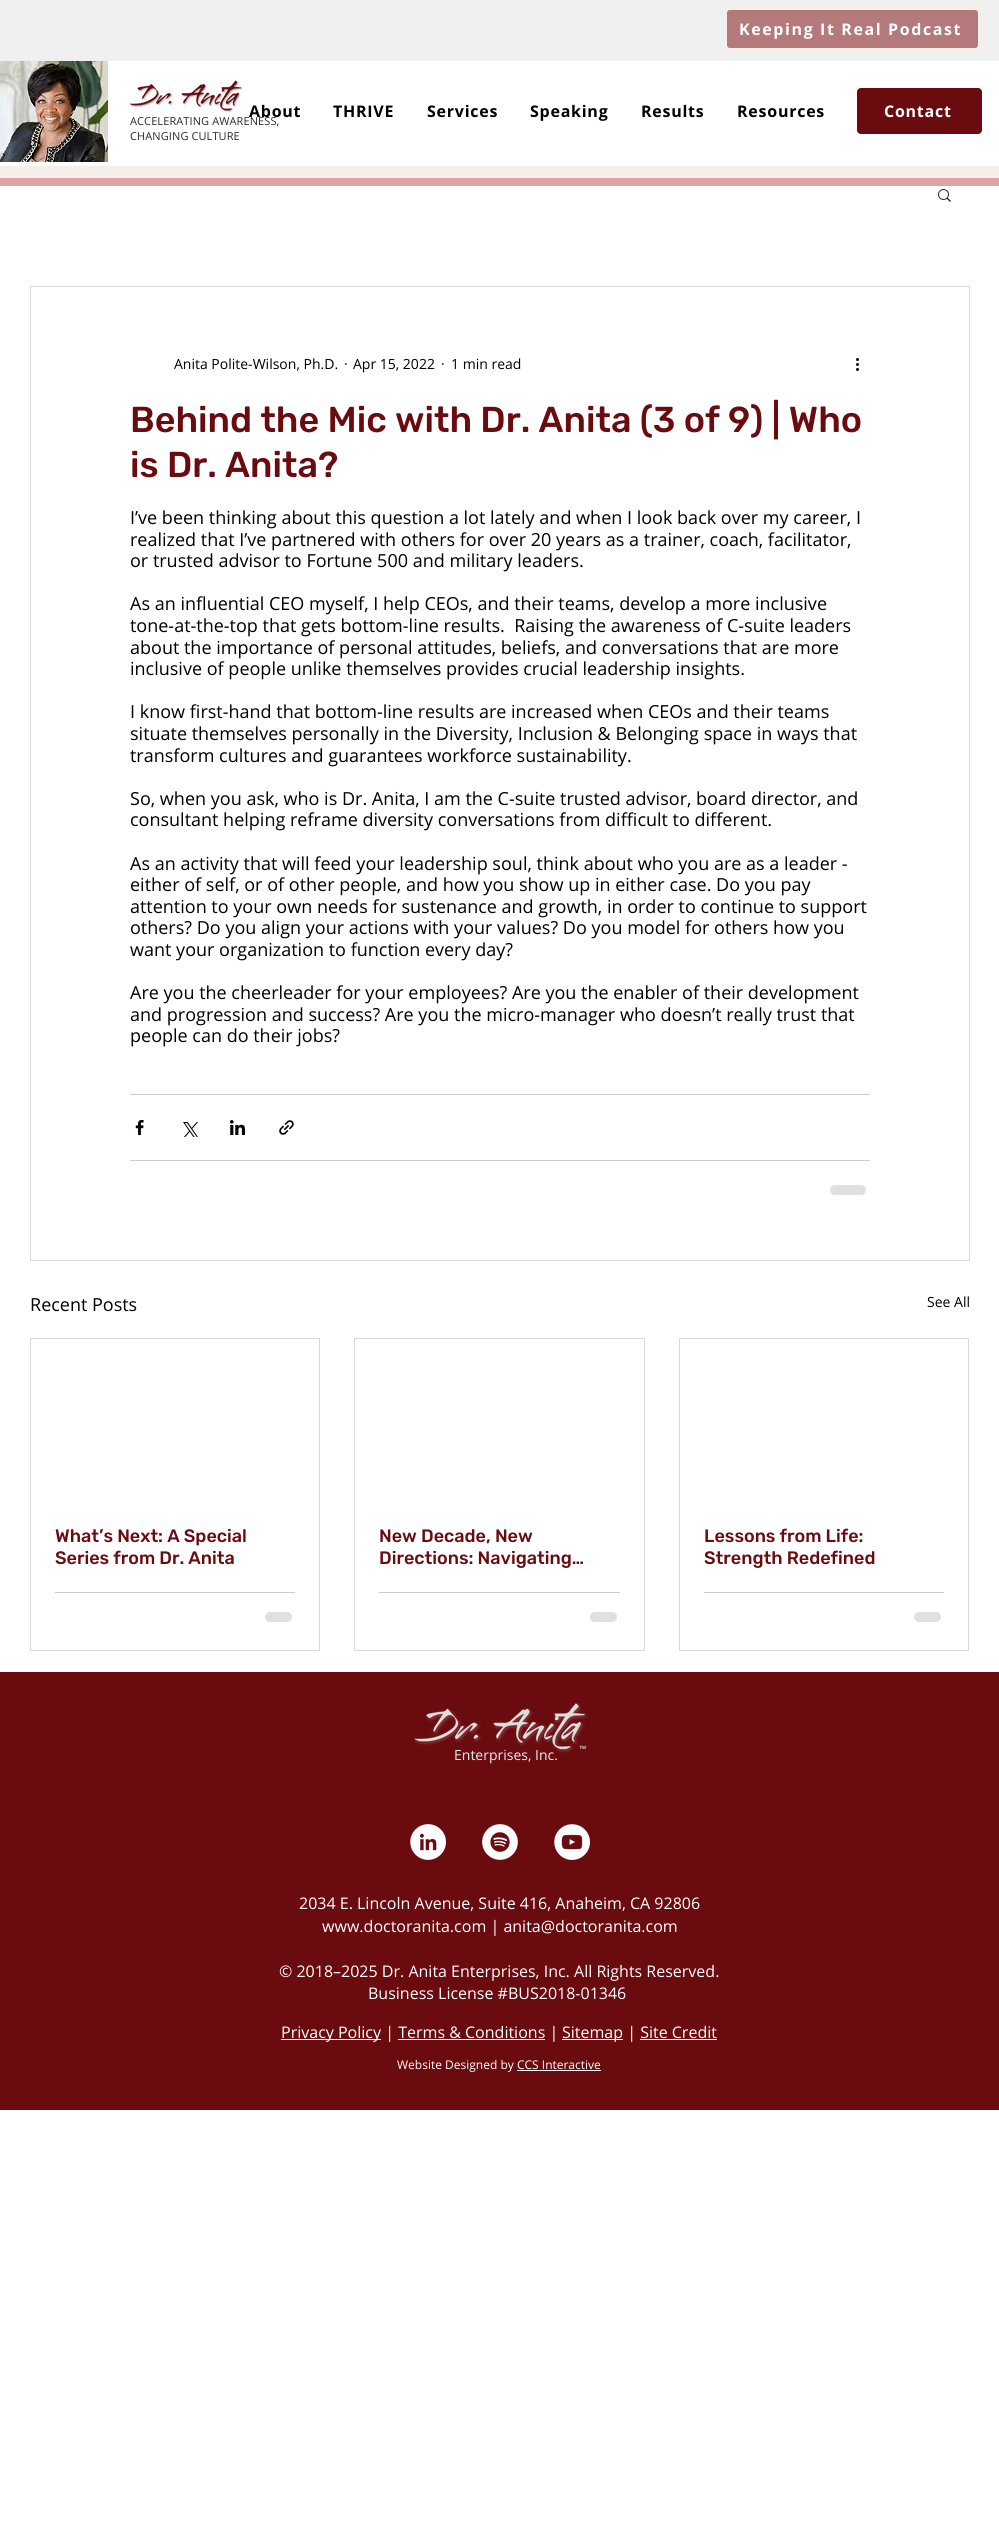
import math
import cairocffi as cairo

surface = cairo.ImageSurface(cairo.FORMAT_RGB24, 999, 2531)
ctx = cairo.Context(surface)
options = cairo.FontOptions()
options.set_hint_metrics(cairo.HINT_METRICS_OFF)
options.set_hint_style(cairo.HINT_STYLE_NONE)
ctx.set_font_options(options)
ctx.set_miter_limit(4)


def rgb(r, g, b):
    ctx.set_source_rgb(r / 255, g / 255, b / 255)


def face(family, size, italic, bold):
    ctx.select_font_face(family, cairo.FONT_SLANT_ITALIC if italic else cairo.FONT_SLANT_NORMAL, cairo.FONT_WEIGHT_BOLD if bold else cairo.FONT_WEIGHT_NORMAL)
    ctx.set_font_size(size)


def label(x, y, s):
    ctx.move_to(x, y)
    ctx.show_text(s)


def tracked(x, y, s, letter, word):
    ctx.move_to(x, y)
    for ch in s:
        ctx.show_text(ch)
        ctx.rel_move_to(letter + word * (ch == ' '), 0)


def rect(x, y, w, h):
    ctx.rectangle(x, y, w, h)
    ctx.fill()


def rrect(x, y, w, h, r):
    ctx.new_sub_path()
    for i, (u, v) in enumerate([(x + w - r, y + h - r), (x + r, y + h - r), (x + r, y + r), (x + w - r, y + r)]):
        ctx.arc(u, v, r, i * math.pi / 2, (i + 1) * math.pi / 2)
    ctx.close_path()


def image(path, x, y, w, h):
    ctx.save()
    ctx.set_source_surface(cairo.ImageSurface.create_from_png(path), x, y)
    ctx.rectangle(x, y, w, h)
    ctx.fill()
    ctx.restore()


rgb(255, 255, 255)
ctx.paint()
rgb(240, 240, 240)
rect(0, 0, 999, 61)
rgb(179, 121, 123)
rrect(725, 8, 255, 42, 5)
ctx.fill_preserve()
rgb(244, 239, 233)
ctx.set_line_width(4)
ctx.stroke()
face('Open Sans', 16, 0, 1)
rgb(255, 255, 255)
tracked(739, 35, 'Keeping It Real Podcast', 1.6, 0)
rgb(0, 0, 0)
tracked(249, 117, 'About', 0.75, 0)
tracked(333, 117, 'THRIVE', 0.75, 0)
tracked(427, 117, 'Services', 0.75, 0)
tracked(530, 117, 'Speaking', 0.75, 0)
tracked(641, 117, 'Results', 0.75, 0)
tracked(737, 117, 'Resources', 0.75, 0)
rgb(106, 11, 15)
rrect(857, 88, 125, 46, 4)
ctx.fill()
rgb(255, 255, 255)
tracked(884, 117, 'Contact', 0.75, 0)
image('image0.png', 0, 61, 108, 101)
image('image1.png', 129, 80, 114, 33)
face('Open Sans', 11, 0, 0)
rgb(42, 42, 42)
tracked(130, 125, 'ACCELERATING AWARENESS,', 0.1, 0)
tracked(130, 140, 'CHANGING CULTURE', 0.1, 0)
rgb(244, 239, 233)
rect(0, 166, 999, 12)
rgb(223, 163, 166)
rect(0, 178, 999, 8)
image('image2.png', 938, 189, 13, 13)
ctx.rectangle(30.5, 286.5, 939, 974)
rgb(217, 217, 217)
ctx.set_line_width(1)
ctx.stroke()
face('Open Sans', 14, 0, 0)
rgb(0, 0, 0)
label(174, 369, 'Anita Polite-Wilson, Ph.D.')
label(344, 369, '·')
label(353, 369, 'Apr 15, 2022')
label(441, 369, '·')
label(451, 369, '1 min read')
image('image3.png', 856, 358, 3, 13)
face('Rubik Medium', 36, 0, 0)
rgb(106, 11, 15)
label(130, 432, 'Behind the Mic with Dr. Anita (3 of 9) | Who')
label(130, 477, 'is Dr. Anita?')
face('Open Sans', 18, 0, 0)
rgb(0, 0, 0)
label(130, 524, 'I’ve been thinking about this question a lot lately and when I look back over my career, I')
label(130, 546, 'realized that I’ve partnered with others for over 20 years as a trainer, coach, facilitator,')
label(130, 567, 'or trusted advisor to Fortune 500 and military leaders.')
label(130, 610, 'As an influential CEO myself, I help CEOs, and their teams, develop a more inclusive')
label(130, 632, 'tone-at-the-top that gets bottom-line results.  Raising the awareness of C-suite leaders')
label(130, 654, 'about the importance of personal attitudes, beliefs, and conversations that are more')
label(130, 675, 'inclusive of people unlike themselves provides crucial leadership insights.')
label(130, 718, 'I know first-hand that bottom-line results are increased when CEOs and their teams')
label(130, 740, 'situate themselves personally in the Diversity, Inclusion & Belonging space in ways that')
label(130, 762, 'transform cultures and guarantees workforce sustainability.')
label(130, 805, 'So, when you ask, who is Dr. Anita, I am the C-suite trusted advisor, board director, and')
label(130, 826, 'consultant helping reframe diversity conversations from difficult to different.')
label(130, 870, 'As an activity that will feed your leadership soul, think about who you are as a leader -')
label(130, 891, 'either of self, or of other people, and how you show up in either case. Do you pay')
label(130, 913, 'attention to your own needs for sustenance and growth, in order to continue to support')
label(130, 934, 'others? Do you align your actions with your values? Do you model for others how you')
label(130, 956, 'want your organization to function every day?')
label(130, 999, 'Are you the cheerleader for your employees? Are you the enabler of their development')
label(130, 1021, 'and progression and success? Are you the micro-manager who doesn’t really trust that')
label(130, 1042, 'people can do their jobs?')
rgb(204, 204, 204)
rect(130, 1094, 740, 1)
image('image4.png', 135, 1120, 9, 15)
image('image5.png', 183, 1122, 15, 15)
image('image6.png', 230, 1120, 15, 15)
image('image7.png', 279, 1120, 15, 15)
rect(130, 1160, 740, 1)
rgb(224, 224, 224)
rrect(830, 1185, 36, 10, 5)
ctx.fill()
rgb(0, 0, 0)
label(30, 1311, 'Recent Posts')
face('Open Sans', 14, 0, 0)
label(927, 1307, 'See All')
ctx.rectangle(30.5, 1338.5, 289, 312)
rgb(217, 217, 217)
ctx.stroke()
face('Rubik Medium', 18, 0, 0)
rgb(106, 11, 15)
label(55, 1542, 'What’s Next: A Special')
label(55, 1564, 'Series from Dr. Anita')
rgb(204, 204, 204)
rect(55, 1592, 240, 1)
rgb(224, 224, 224)
rrect(265, 1612, 27, 10, 5)
ctx.fill()
ctx.rectangle(354.5, 1338.5, 290, 312)
rgb(217, 217, 217)
ctx.stroke()
rgb(106, 11, 15)
label(379, 1542, 'New Decade, New')
label(379, 1564, 'Directions: Navigating…')
rgb(204, 204, 204)
rect(379, 1592, 241, 1)
rgb(224, 224, 224)
rrect(590, 1612, 27, 10, 5)
ctx.fill()
ctx.rectangle(679.5, 1338.5, 289, 312)
rgb(217, 217, 217)
ctx.stroke()
rgb(106, 11, 15)
label(704, 1542, 'Lessons from Life:')
label(704, 1564, 'Strength Redefined')
rgb(204, 204, 204)
rect(704, 1592, 240, 1)
rgb(224, 224, 224)
rrect(914, 1612, 27, 10, 5)
ctx.fill()
rgb(106, 11, 15)
rect(0, 1672, 999, 438)
image('image8.png', 414, 1702, 174, 51)
face('Open Sans', 14, 0, 0)
rgb(235, 238, 240)
label(454, 1760, 'Enterprises, Inc.')
image('image9.png', 410, 1824, 36, 36)
image('image10.png', 482, 1824, 36, 36)
image('image11.png', 554, 1824, 36, 36)
face('Open Sans', 16, 0, 0)
rgb(255, 255, 255)
label(299, 1909, '2034 E. Lincoln Avenue, Suite 416, Anaheim, CA 92806')
label(322, 1932, 'www.doctoranita.com | anita@doctoranita.com')
label(279, 1977, '© 2018–2025 Dr. Anita Enterprises, Inc. All Rights Reserved.')
label(368, 1999, 'Business License #BUS2018-01346')
rect(281, 2039, 100, 1)
label(281, 2038, 'Privacy Policy | Terms & Conditions |')
rect(398, 2039, 147, 1)
rect(562, 2039, 61, 1)
label(562, 2038, 'Sitemap | Site Credit')
rect(640, 2039, 77, 1)
face('Open Sans', 12, 0, 0)
label(397, 2069, 'Website Designed by CCS Interactive')
rect(517, 2070, 84, 1)
surface.write_to_png('render.png')
